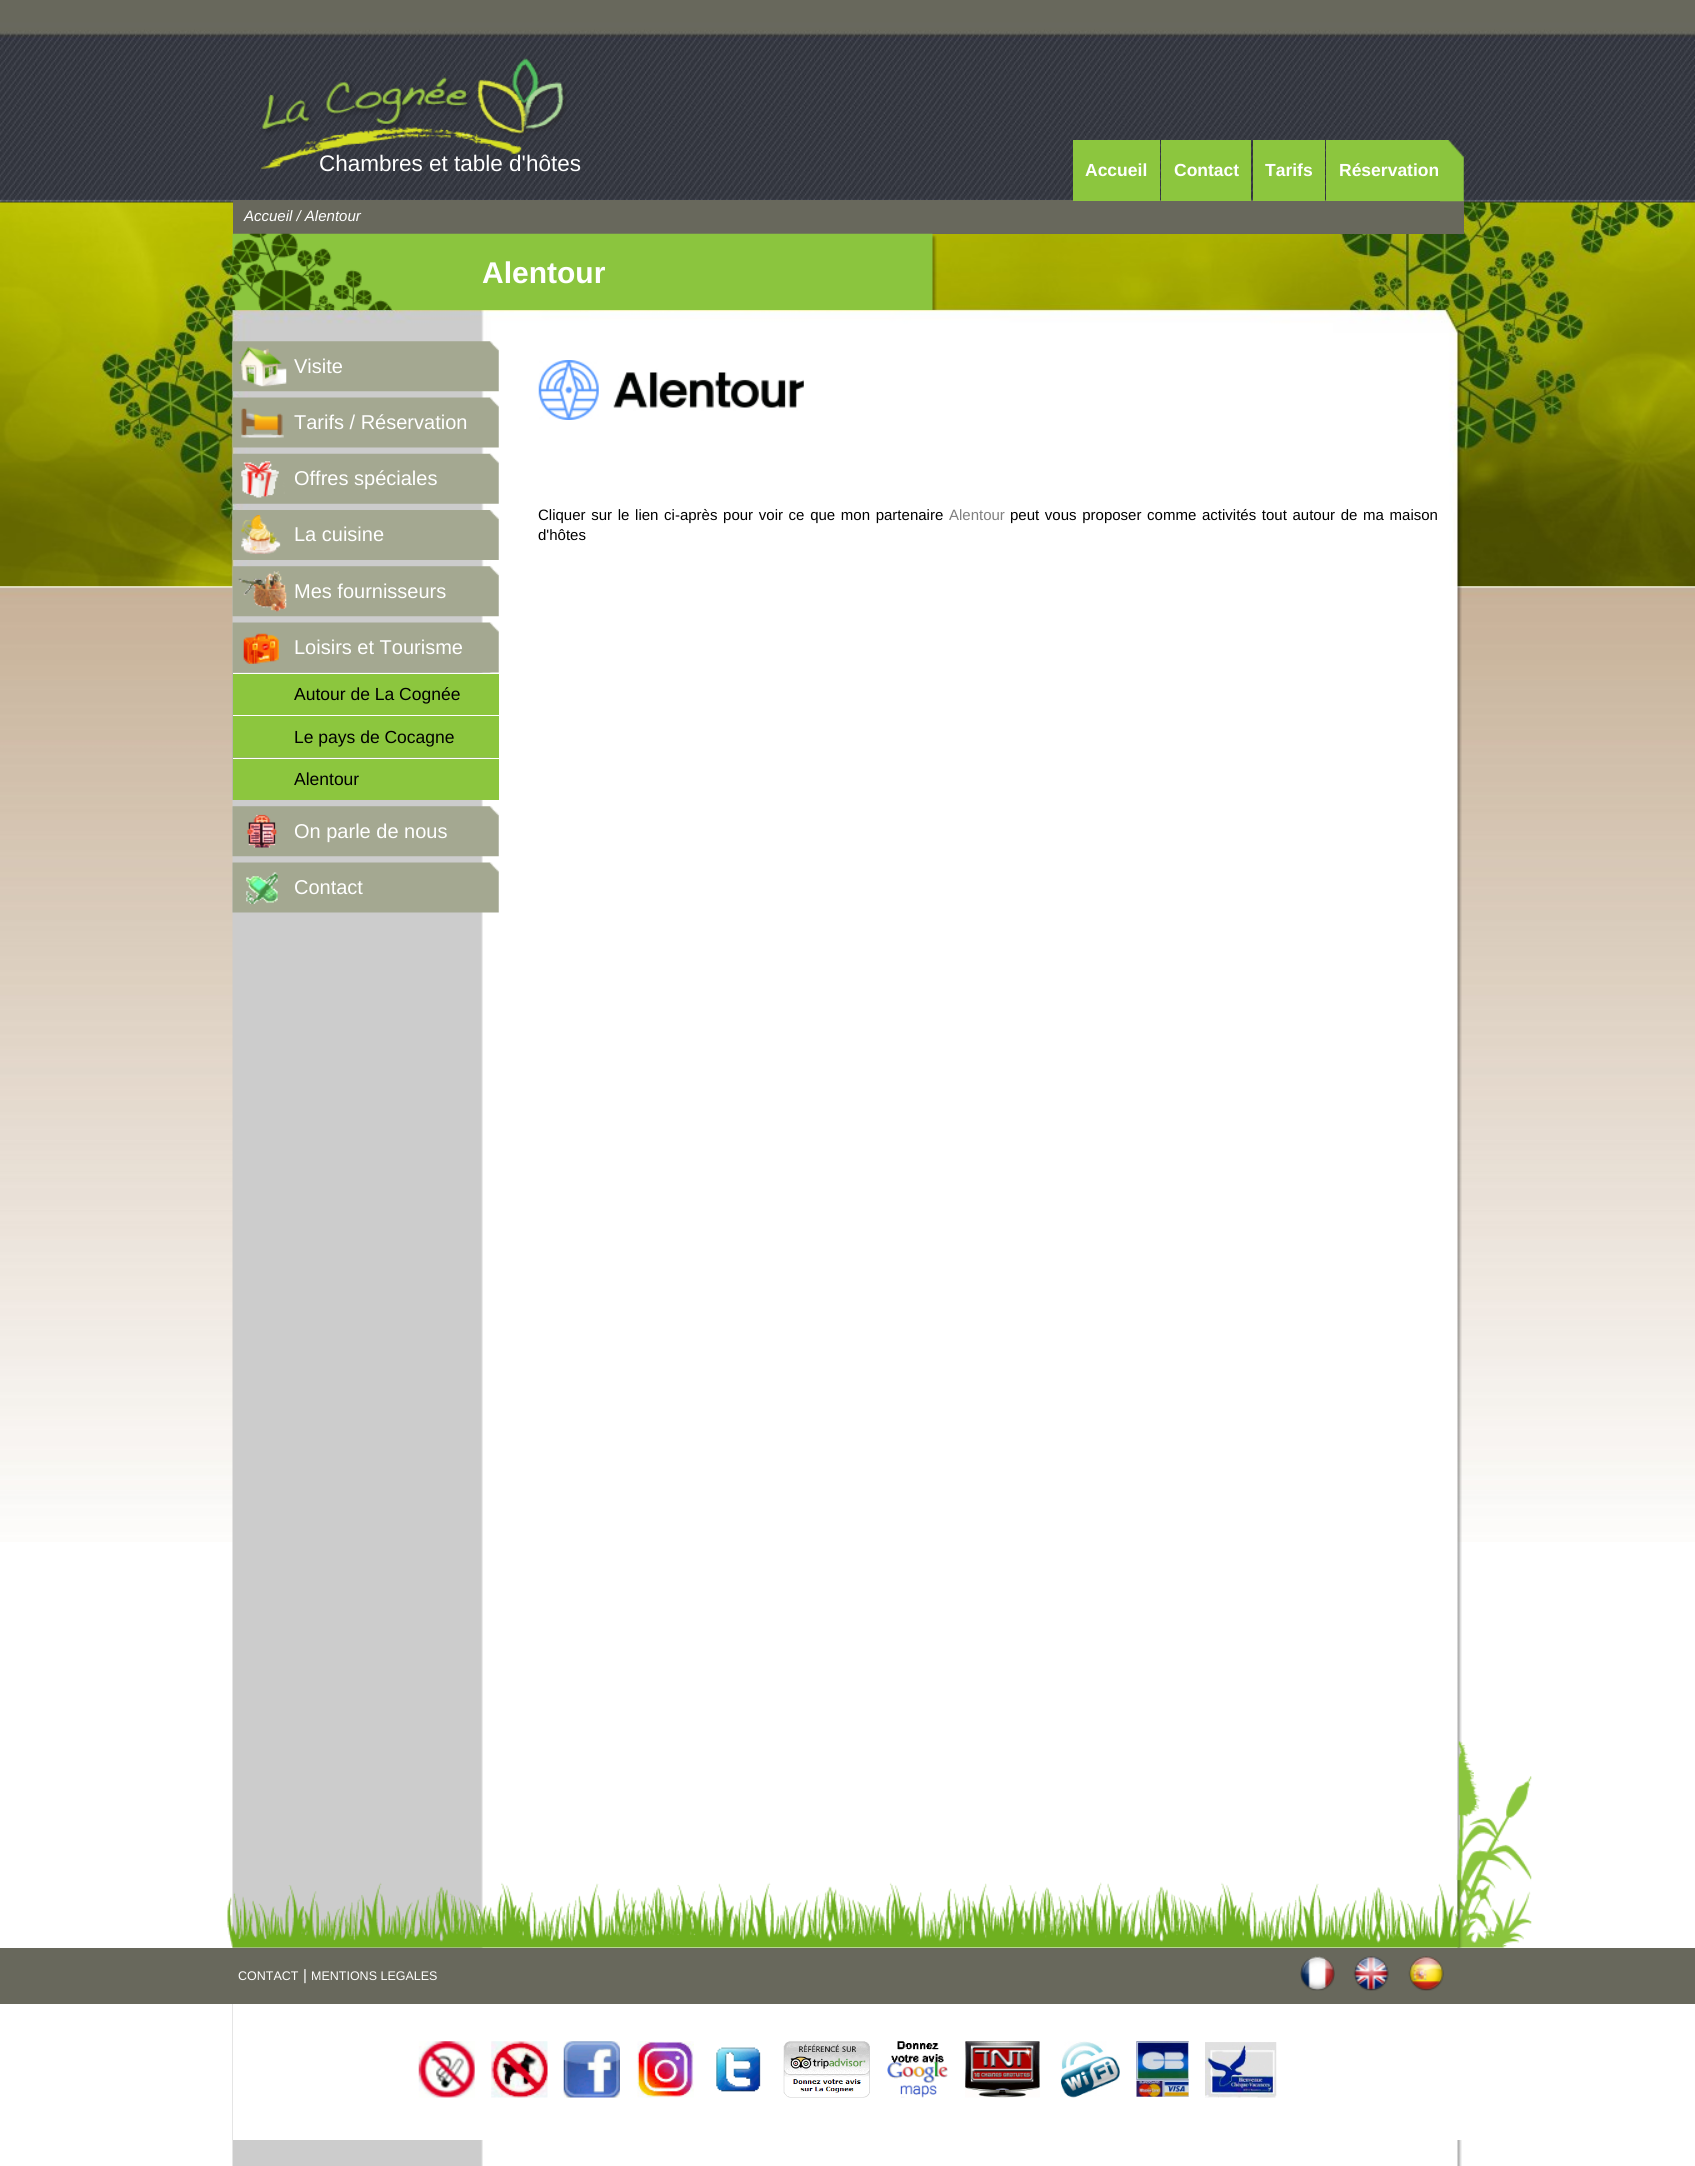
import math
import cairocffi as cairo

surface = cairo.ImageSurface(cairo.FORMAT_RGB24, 1695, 2166)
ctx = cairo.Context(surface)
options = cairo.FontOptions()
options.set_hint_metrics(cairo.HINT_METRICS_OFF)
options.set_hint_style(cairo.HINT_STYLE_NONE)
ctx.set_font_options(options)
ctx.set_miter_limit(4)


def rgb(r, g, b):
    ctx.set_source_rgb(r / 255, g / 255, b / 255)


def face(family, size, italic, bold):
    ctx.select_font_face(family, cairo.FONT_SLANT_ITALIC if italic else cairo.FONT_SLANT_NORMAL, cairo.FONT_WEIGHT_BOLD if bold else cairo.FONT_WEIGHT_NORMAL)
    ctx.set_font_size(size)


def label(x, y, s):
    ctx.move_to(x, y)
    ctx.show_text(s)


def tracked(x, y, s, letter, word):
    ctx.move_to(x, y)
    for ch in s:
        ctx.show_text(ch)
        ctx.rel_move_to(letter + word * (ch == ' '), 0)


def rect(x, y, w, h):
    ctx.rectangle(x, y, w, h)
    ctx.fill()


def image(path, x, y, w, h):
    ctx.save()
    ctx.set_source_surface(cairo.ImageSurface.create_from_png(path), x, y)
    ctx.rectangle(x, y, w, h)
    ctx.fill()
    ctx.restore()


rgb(255, 255, 255)
ctx.paint()
image('image0.png', 0, 586, 1695, 956)
image('image1.png', 0, 0, 1695, 203)
image('image2.png', 260, 58, 307, 111)
face('Liberation Sans', 22.5, 0, 0)
rgb(255, 255, 255)
label(319, 171, 'Chambres et table d\'hôtes')
image('image26.png', 232, 586, 1230, 1580)
image('image4.png', 0, 202, 1695, 385)
rgb(104, 104, 92)
rect(233, 200, 1231, 34)
rgb(140, 198, 62)
rect(1073, 140, 87, 61)
face('Liberation Sans', 17.5, 0, 1)
rgb(255, 255, 255)
label(1085, 176, 'Accueil')
rgb(140, 198, 62)
rect(1161, 140, 90, 61)
rgb(255, 255, 255)
label(1174, 176, 'Contact')
rgb(140, 198, 62)
rect(1253, 140, 72, 61)
rgb(255, 255, 255)
label(1265, 176, 'Tarifs')
rgb(140, 198, 62)
rect(1326, 140, 114, 61)
rgb(255, 255, 255)
label(1339, 176, 'Réservation')
image('image3.png', 1440, 140, 24, 62)
face('Liberation Sans', 15, 1, 0)
label(244, 221, 'Accueil / Alentour')
image('image5.png', 232, 233, 705, 77)
face('Liberation Sans', 30, 0, 1)
label(482, 283, 'Alentour')
image('image6.png', 232, 341, 267, 51)
image('image7.png', 238, 347, 49, 40)
face('Liberation Sans', 20, 0, 0)
label(294, 373, 'Visite')
image('image8.png', 232, 397, 267, 51)
image('image9.png', 241, 408, 43, 30)
label(294, 429, 'Tarifs / Réservation')
image('image10.png', 232, 453, 267, 51)
image('image11.png', 241, 461, 44, 37)
label(294, 485, 'Offres spéciales')
image('image12.png', 232, 510, 267, 50)
image('image13.png', 241, 515, 40, 39)
label(294, 541, 'La cuisine')
image('image14.png', 232, 566, 267, 51)
image('image15.png', 238, 571, 49, 41)
label(294, 598, 'Mes fournisseurs')
image('image16.png', 232, 622, 267, 51)
image('image17.png', 243, 633, 36, 31)
label(294, 654, 'Loisirs et Tourisme')
image('image18.png', 232, 672, 260, 43)
rgb(140, 198, 62)
rect(233, 674, 266, 41)
rgb(255, 255, 255)
rect(233, 673, 266, 1)
face('Liberation Sans', 17.5, 0, 0)
rgb(0, 0, 0)
label(294, 700, 'Autour de La Cognée')
image('image19.png', 232, 715, 1, 43)
rgb(140, 198, 62)
rect(233, 716, 266, 42)
rgb(255, 255, 255)
rect(233, 715, 250, 1)
rgb(0, 0, 0)
label(294, 743, 'Le pays de Cocagne')
image('image20.png', 232, 757, 260, 43)
rgb(140, 198, 62)
rect(233, 759, 266, 41)
rgb(255, 255, 255)
rect(233, 758, 266, 1)
rgb(0, 0, 0)
label(294, 785, 'Alentour')
image('image21.png', 232, 806, 267, 51)
image('image22.png', 247, 814, 30, 34)
face('Liberation Sans', 20, 0, 0)
rgb(255, 255, 255)
label(294, 838, 'On parle de nous')
image('image23.png', 232, 862, 267, 51)
image('image24.png', 246, 872, 32, 32)
label(294, 894, 'Contact')
image('image25.png', 538, 360, 266, 60)
face('Liberation Sans', 15, 0, 0)
rgb(0, 0, 0)
tracked(538, 520, 'Cliquer sur le lien ci-après pour voir ce que mon partenaire', 0, 1.5)
rgb(128, 128, 128)
label(949, 520, 'Alentour')
rgb(0, 0, 0)
tracked(1010, 520, 'peut vous proposer comme activités tout autour de ma maison', 0, 1.5)
label(538, 540, 'd\'hôtes')
image('image27.png', 227, 1741, 1305, 207)
rgb(104, 104, 92)
rect(0, 1948, 1695, 56)
face('Liberation Sans', 12.5, 0, 0)
rgb(255, 255, 255)
label(238, 1980, 'CONTACT')
face('Liberation Sans', 15, 0, 0)
label(303, 1980, '|')
face('Liberation Sans', 12.5, 0, 0)
label(311, 1980, 'MENTIONS LEGALES')
image('image28.png', 1300, 1956, 35, 35)
image('image29.png', 1353, 1956, 36, 35)
image('image30.png', 1408, 1956, 36, 35)
rect(233, 2004, 1229, 136)
image('image31.png', 418, 2041, 57, 57)
image('image32.png', 491, 2041, 57, 57)
image('image33.png', 563, 2041, 57, 57)
image('image34.png', 637, 2041, 57, 57)
image('image35.png', 716, 2047, 45, 45)
image('image36.png', 783, 2041, 87, 57)
image('image37.png', 887, 2041, 61, 57)
image('image38.png', 965, 2041, 75, 57)
image('image39.png', 1060, 2041, 60, 57)
image('image40.png', 1136, 2041, 53, 56)
image('image41.png', 1205, 2042, 72, 56)
surface.write_to_png('render.png')
